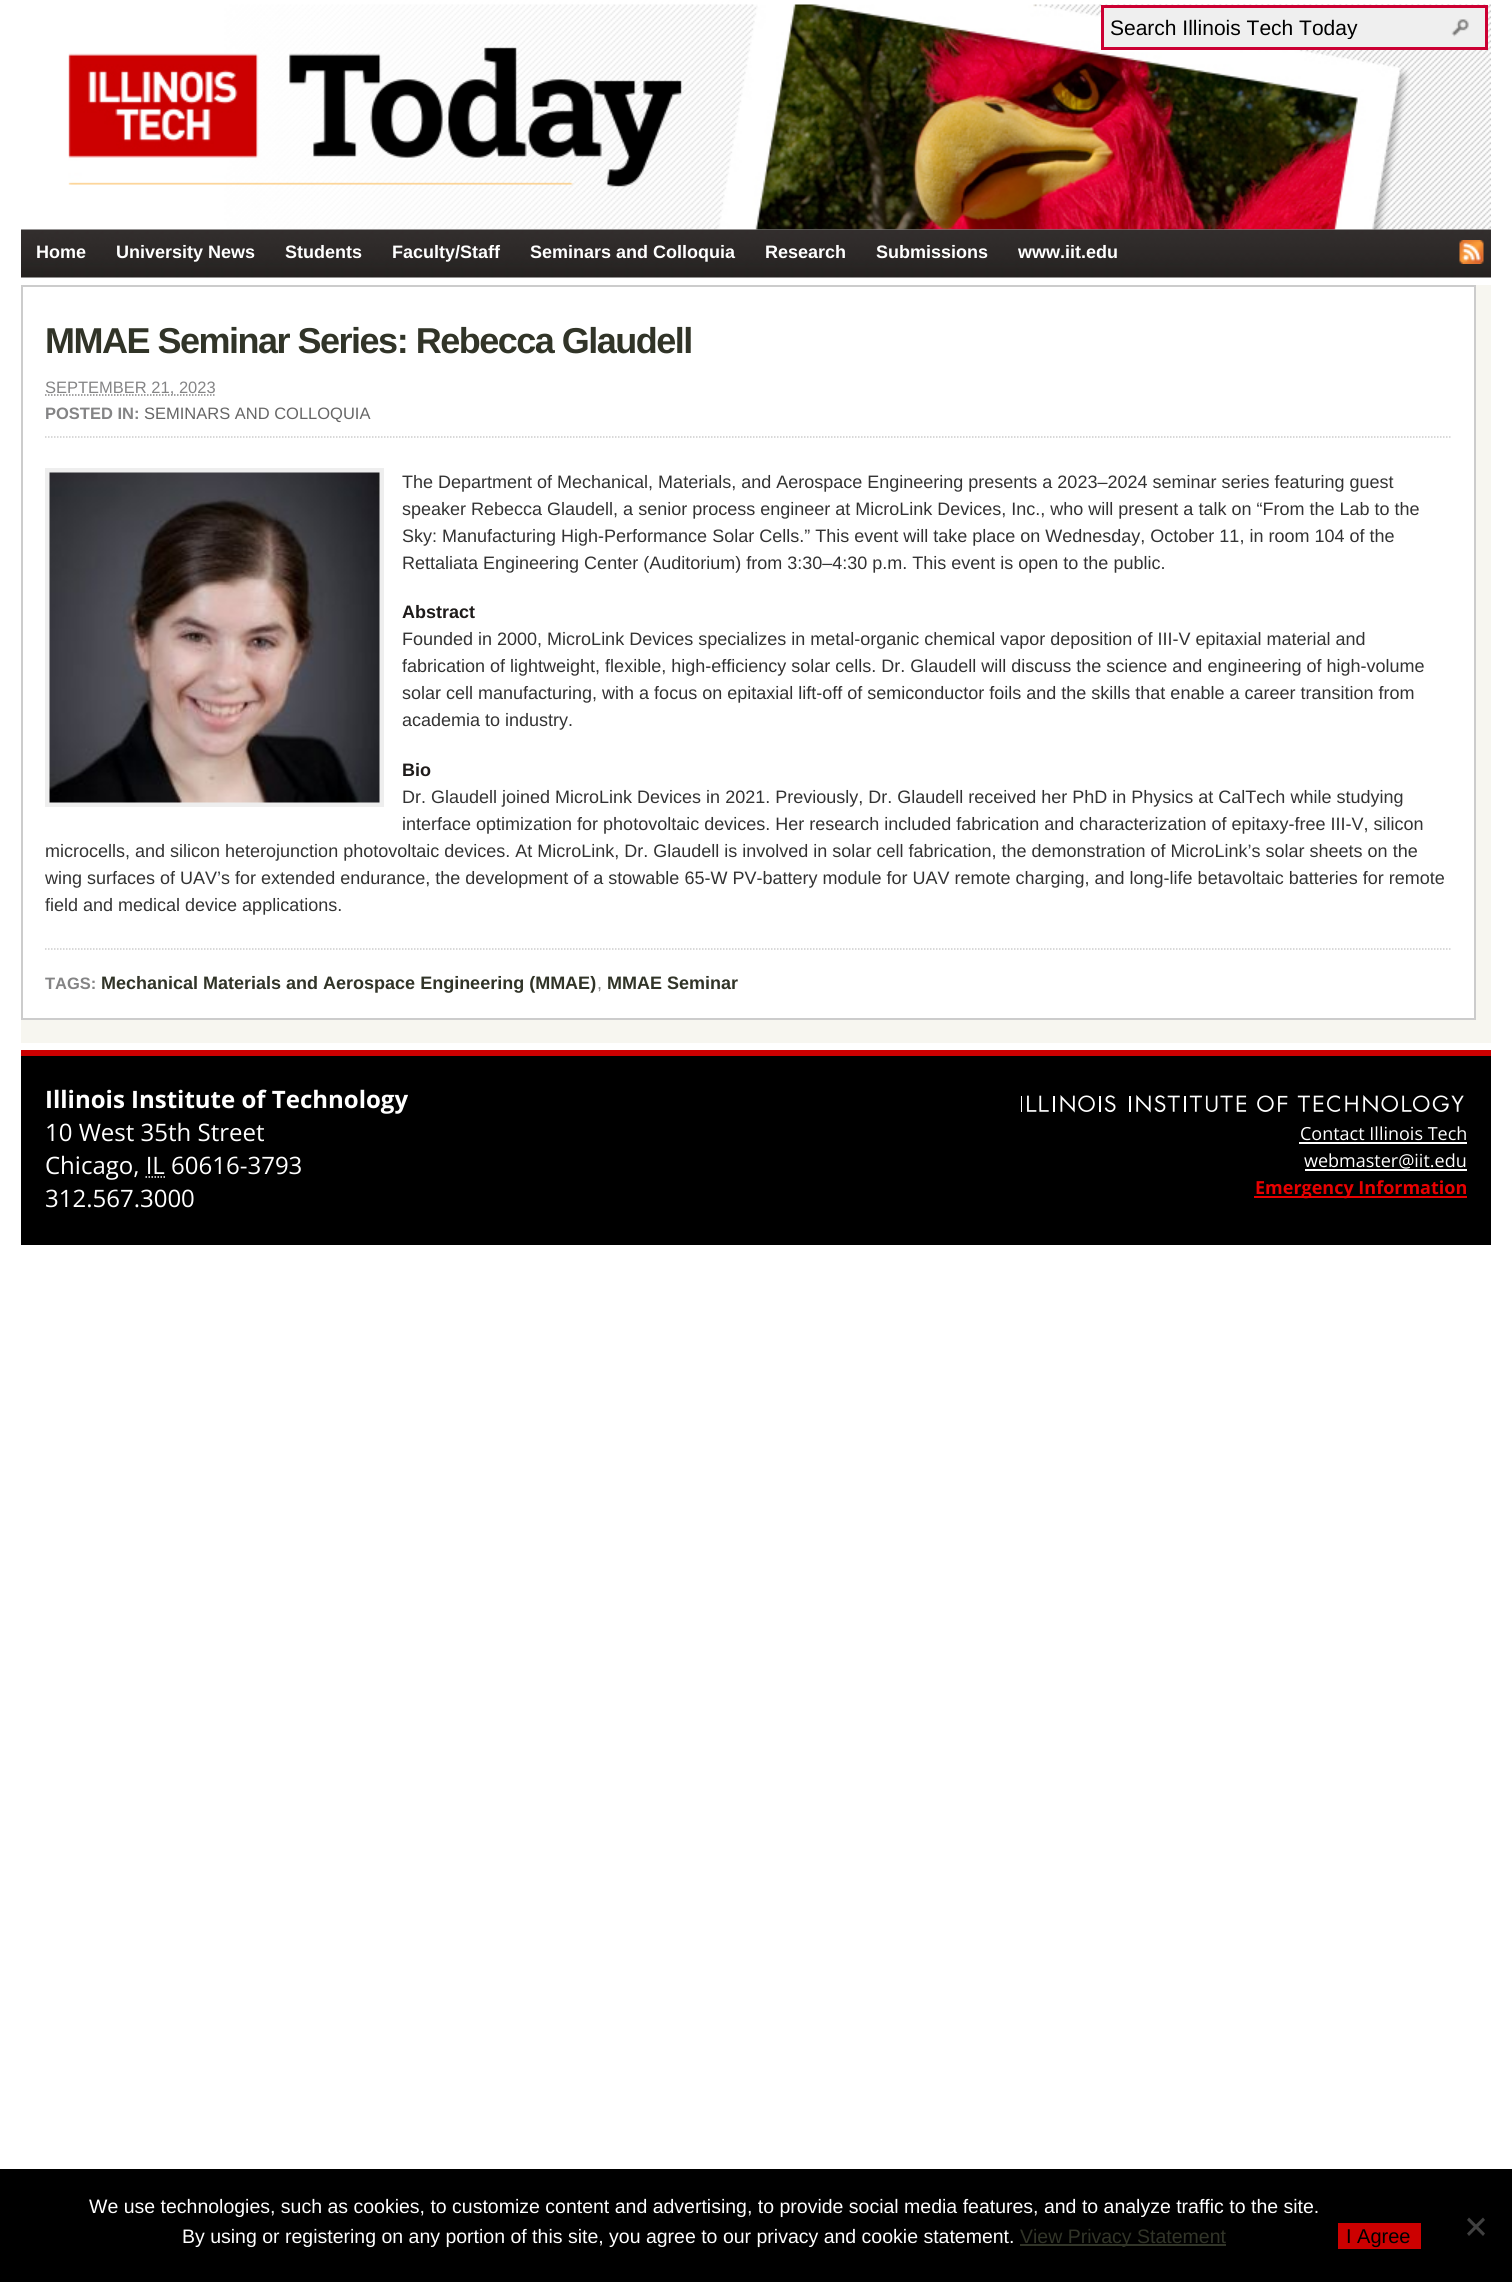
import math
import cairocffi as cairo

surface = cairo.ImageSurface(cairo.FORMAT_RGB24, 1512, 2282)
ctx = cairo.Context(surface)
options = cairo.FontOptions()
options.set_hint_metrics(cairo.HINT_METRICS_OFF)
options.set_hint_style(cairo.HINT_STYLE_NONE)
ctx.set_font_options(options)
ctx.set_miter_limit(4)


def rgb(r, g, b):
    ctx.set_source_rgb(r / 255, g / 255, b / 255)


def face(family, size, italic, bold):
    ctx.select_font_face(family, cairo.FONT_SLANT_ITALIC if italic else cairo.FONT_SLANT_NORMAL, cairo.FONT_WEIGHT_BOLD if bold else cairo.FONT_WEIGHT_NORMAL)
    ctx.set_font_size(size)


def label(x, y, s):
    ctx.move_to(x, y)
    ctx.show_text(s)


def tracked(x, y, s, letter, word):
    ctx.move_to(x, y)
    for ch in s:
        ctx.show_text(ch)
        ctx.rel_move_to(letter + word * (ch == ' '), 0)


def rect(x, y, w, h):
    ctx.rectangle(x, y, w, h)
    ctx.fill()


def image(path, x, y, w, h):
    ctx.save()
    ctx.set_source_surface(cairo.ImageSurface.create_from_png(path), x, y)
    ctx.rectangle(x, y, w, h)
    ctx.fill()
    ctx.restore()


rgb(255, 255, 255)
ctx.paint()
image('image0.png', 68, 4, 1423, 226)
rgb(239, 239, 239)
ctx.rectangle(1102.5, 6.5, 384, 42)
ctx.fill_preserve()
rgb(204, 0, 51)
ctx.set_line_width(3)
ctx.stroke()
ctx.save()
ctx.rectangle(1110, 15, 339, 24)
ctx.clip()
face('Liberation Sans', 21, 0, 0)
rgb(0, 0, 0)
label(1110, 35, 'Search Illinois Tech Today')
ctx.restore()
image('image1.png', 1451, 19, 18, 18)
image('image2.png', 21, 229, 1470, 49)
face('Liberation Sans', 18, 0, 1)
rgb(255, 255, 255)
label(36, 258, 'Home')
label(116, 258, 'University News')
label(285, 258, 'Students')
label(392, 258, 'Faculty/Staff')
label(530, 258, 'Seminars and Colloquia')
label(765, 258, 'Research')
label(876, 258, 'Submissions')
label(1018, 258, 'www.iit.edu')
image('image3.png', 1459, 240, 25, 24)
rgb(247, 246, 240)
rect(21, 285, 1470, 758)
rgb(255, 255, 255)
ctx.rectangle(22, 286, 1453, 733)
ctx.fill_preserve()
rgb(204, 204, 204)
ctx.set_line_width(2)
ctx.stroke()
face('Liberation Sans', 36, 0, 1)
rgb(49, 52, 40)
tracked(45, 353, 'MMAE Seminar Series: Rebecca Glaudell', -1.5, 0)
ctx.new_path()
ctx.move_to(45, 437)
ctx.line_to(1452, 437)
rgb(204, 204, 204)
ctx.set_line_width(1.5)
ctx.set_dash([1.5, 1.5])
ctx.stroke()
ctx.new_path()
ctx.move_to(45, 395)
ctx.line_to(215.5, 395)
rgb(132, 132, 133)
ctx.stroke()
face('Liberation Sans', 16.5, 0, 0)
label(45, 393, 'SEPTEMBER 21, 2023')
face('Liberation Sans', 16.5, 0, 1)
label(45, 419, 'POSTED IN:')
face('Liberation Sans', 16.5, 0, 0)
rgb(102, 102, 102)
label(144, 419, 'SEMINARS AND COLLOQUIA')
ctx.rectangle(47.5, 470.5, 334, 334)
rgb(238, 238, 238)
ctx.set_line_width(5)
ctx.set_dash([])
ctx.stroke()
image('image4.png', 49, 472, 331, 331)
face('Liberation Sans', 18, 0, 0)
rgb(51, 51, 51)
label(402, 488, 'The Department of Mechanical, Materials, and Aerospace Engineering presents a 2023–2024 seminar series featuring guest')
label(402, 515, 'speaker Rebecca Glaudell, a senior process engineer at MicroLink Devices, Inc., who will present a talk on “From the Lab to the')
label(402, 542, 'Sky: Manufacturing High-Performance Solar Cells.” This event will take place on Wednesday, October 11, in room 104 of the')
label(402, 569, 'Rettaliata Engineering Center (Auditorium) from 3:30–4:30 p.m. This event is open to the public.')
face('Liberation Sans', 18, 0, 1)
rgb(30, 27, 26)
label(402, 618, 'Abstract')
face('Liberation Sans', 18, 0, 0)
rgb(51, 51, 51)
label(402, 645, 'Founded in 2000, MicroLink Devices specializes in metal-organic chemical vapor deposition of III-V epitaxial material and')
label(402, 672, 'fabrication of lightweight, flexible, high-efficiency solar cells. Dr. Glaudell will discuss the science and engineering of high-volume')
label(402, 699, 'solar cell manufacturing, with a focus on epitaxial lift-off of semiconductor foils and the skills that enable a career transition from')
label(402, 726, 'academia to industry.')
face('Liberation Sans', 18, 0, 1)
rgb(30, 27, 26)
label(402, 776, 'Bio')
face('Liberation Sans', 18, 0, 0)
rgb(51, 51, 51)
label(402, 803, 'Dr. Glaudell joined MicroLink Devices in 2021. Previously, Dr. Glaudell received her PhD in Physics at CalTech while studying')
label(402, 830, 'interface optimization for photovoltaic devices. Her research included fabrication and characterization of epitaxy-free III-V, silicon')
label(45, 857, 'microcells, and silicon heterojunction photovoltaic devices. At MicroLink, Dr. Glaudell is involved in solar cell fabrication, the demonstration of MicroLink’s solar sheets on the')
label(45, 884, 'wing surfaces of UAV’s for extended endurance, the development of a stowable 65-W PV-battery module for UAV remote charging, and long-life betavoltaic batteries for remote')
label(45, 911, 'field and medical device applications.')
ctx.new_path()
ctx.move_to(45, 949)
ctx.line_to(1452, 949)
rgb(204, 204, 204)
ctx.set_line_width(1.5)
ctx.set_dash([1.5, 1.5])
ctx.stroke()
face('Liberation Sans', 16.5, 0, 1)
rgb(132, 132, 133)
label(45, 989, 'TAGS:')
face('Liberation Sans', 18, 0, 1)
rgb(49, 52, 40)
label(101, 989, 'Mechanical Materials and Aerospace Engineering (MMAE)')
face('Liberation Sans', 18, 0, 0)
rgb(132, 132, 133)
label(597, 989, ',')
face('Liberation Sans', 18, 0, 1)
rgb(49, 52, 40)
label(607, 989, 'MMAE Seminar')
rgb(0, 0, 0)
rect(21, 1056, 1470, 189)
rgb(204, 0, 0)
rect(21, 1050, 1470, 6)
face('Open Sans', 24, 0, 1)
rgb(255, 255, 255)
label(45, 1108, 'Illinois Institute of Technology')
face('Open Sans', 24, 0, 0)
label(45, 1141, '10 West 35th Street')
label(45, 1174, 'Chicago, IL 60616-3793')
ctx.new_path()
ctx.move_to(145.5, 1177)
ctx.line_to(165, 1177)
ctx.stroke()
label(45, 1207, '312.567.3000')
image('image5.png', 1021, 1095, 443, 18)
face('Open Sans', 18, 0, 0)
label(1300, 1140, 'Contact Illinois Tech')
rect(1299, 1142, 168, 2)
label(1304, 1167, 'webmaster@iit.edu')
rect(1305, 1169, 162, 2)
rgb(232, 0, 0)
rect(1254, 1196, 213, 2)
face('Open Sans', 18, 0, 1)
label(1255, 1194, 'Emergency Information')
rgb(0, 0, 0)
rect(0, 2169, 1512, 113)
face('Liberation Sans', 19.5, 0, 0)
rgb(255, 255, 255)
label(89, 2213, 'We use technologies, such as cookies, to customize content and advertising, to provide social media features, and to analyze traffic to the site.')
label(182, 2243, 'By using or registering on any portion of this site, you agree to our privacy and cookie statement.')
rgb(49, 52, 40)
rect(1020, 2244, 206, 2)
label(1020, 2243, 'View Privacy Statement')
rgb(64, 64, 64)
ctx.new_path()
ctx.move_to(1483, 2217.5)
ctx.line_to(1485, 2220)
ctx.line_to(1469, 2236)
ctx.line_to(1467, 2233.5)
ctx.close_path()
ctx.fill()
ctx.new_path()
ctx.move_to(1467, 2220)
ctx.line_to(1469, 2217.5)
ctx.line_to(1485, 2233.5)
ctx.line_to(1483, 2236)
ctx.close_path()
ctx.fill()
rgb(204, 0, 0)
rect(1338, 2223, 83, 26)
face('Liberation Sans', 20, 0, 0)
rgb(0, 0, 0)
label(1346, 2243, 'I Agree')
surface.write_to_png('render.png')
